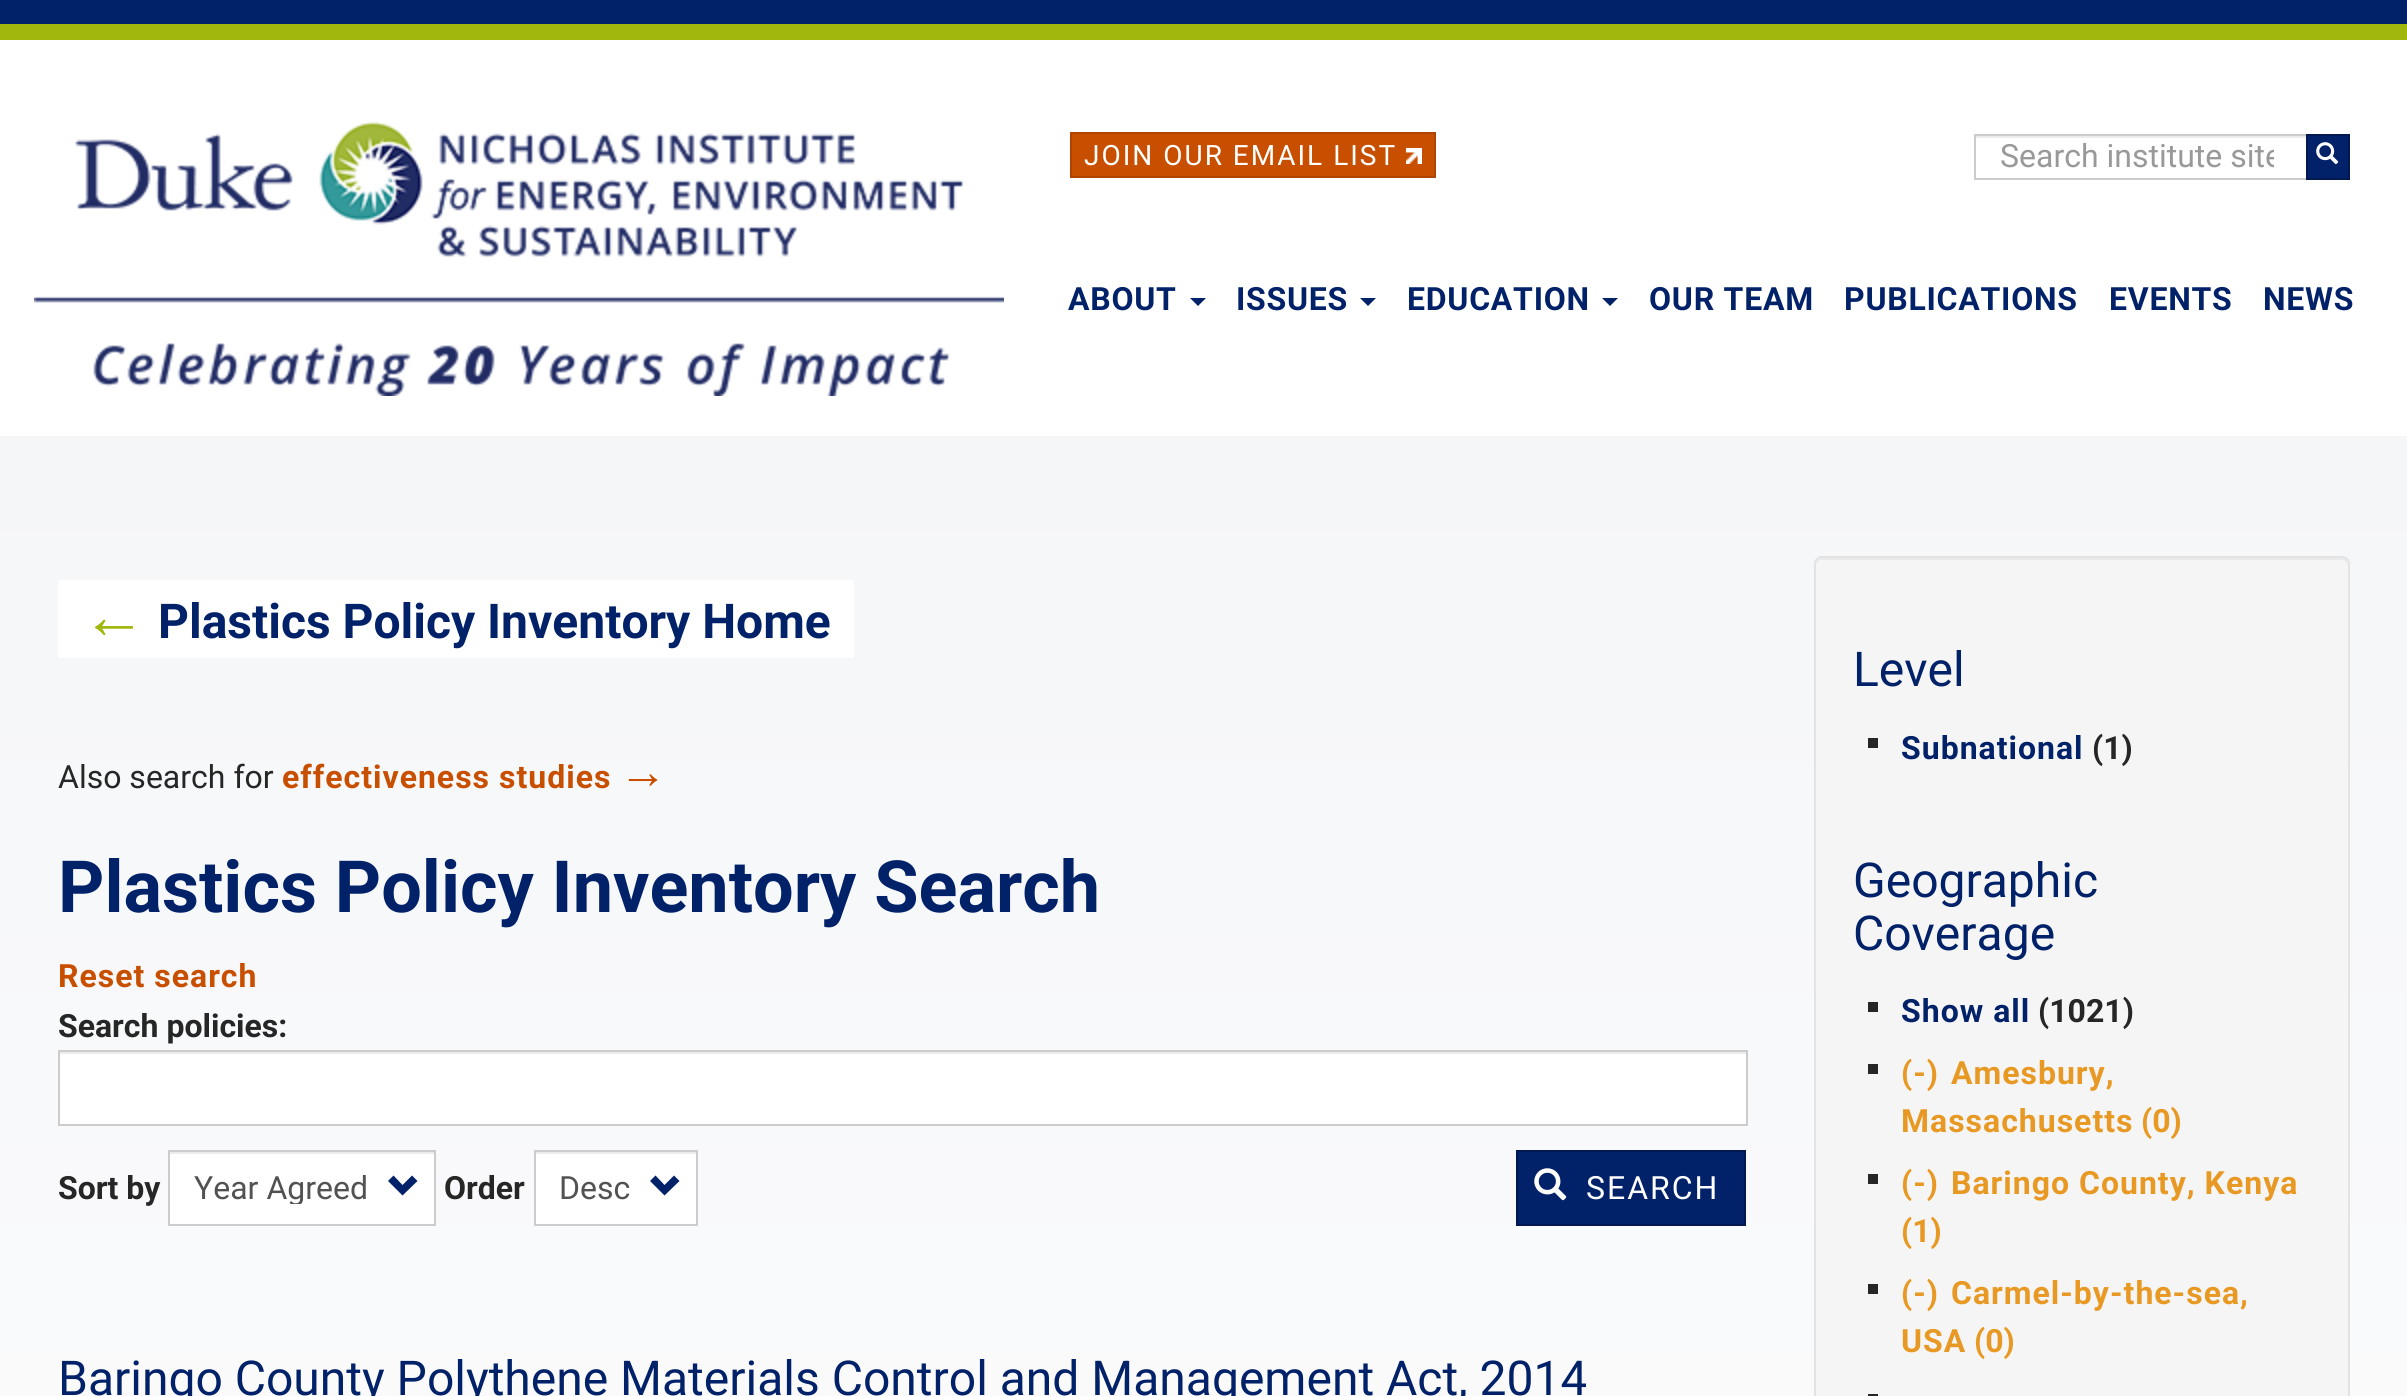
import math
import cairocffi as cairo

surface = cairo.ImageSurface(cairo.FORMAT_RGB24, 2407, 1396)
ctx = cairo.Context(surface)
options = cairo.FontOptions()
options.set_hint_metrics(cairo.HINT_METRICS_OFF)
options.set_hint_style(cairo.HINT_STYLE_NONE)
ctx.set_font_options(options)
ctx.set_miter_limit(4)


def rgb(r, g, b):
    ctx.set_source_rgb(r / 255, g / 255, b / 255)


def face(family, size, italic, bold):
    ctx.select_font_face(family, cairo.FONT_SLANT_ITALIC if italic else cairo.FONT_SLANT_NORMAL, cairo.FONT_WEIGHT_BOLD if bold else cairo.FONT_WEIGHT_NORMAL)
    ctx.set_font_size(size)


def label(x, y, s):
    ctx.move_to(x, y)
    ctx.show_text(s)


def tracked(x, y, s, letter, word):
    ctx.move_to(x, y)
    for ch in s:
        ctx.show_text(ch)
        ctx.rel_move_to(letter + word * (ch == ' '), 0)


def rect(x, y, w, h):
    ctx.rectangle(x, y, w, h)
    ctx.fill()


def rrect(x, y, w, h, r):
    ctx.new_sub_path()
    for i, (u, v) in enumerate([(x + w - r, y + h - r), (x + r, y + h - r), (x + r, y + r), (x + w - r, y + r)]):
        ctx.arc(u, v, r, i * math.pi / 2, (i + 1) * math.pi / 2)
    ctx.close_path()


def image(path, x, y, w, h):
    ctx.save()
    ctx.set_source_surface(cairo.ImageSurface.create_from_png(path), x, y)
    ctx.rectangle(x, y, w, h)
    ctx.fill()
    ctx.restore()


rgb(1, 33, 105)
ctx.paint()
rgb(255, 255, 255)
rect(0, 40, 2407, 396)
rgb(161, 183, 13)
rect(0, 24, 2407, 16)
image('image0.png', 34, 121, 970, 275)
rgb(200, 78, 0)
ctx.rectangle(1071, 133, 364, 44)
ctx.fill_preserve()
rgb(175, 68, 0)
ctx.stroke()
face('Roboto', 28, 0, 0)
rgb(255, 255, 255)
tracked(1084, 165, 'JOIN OUR EMAIL LIST', 2, 0)
image('image1.png', 1406, 148, 16, 16)
rgb(236, 236, 236)
rect(1976, 136, 330, 2)
ctx.rectangle(1975, 135, 332, 44)
rgb(204, 204, 204)
ctx.stroke()
ctx.save()
ctx.rectangle(2000, 138, 274, 38)
ctx.clip()
face('Roboto', 32, 0, 0)
rgb(153, 153, 153)
label(2000, 167, 'Search institute site')
ctx.restore()
rgb(1, 33, 105)
ctx.rectangle(2307, 135, 42, 44)
ctx.fill_preserve()
rgb(1, 25, 80)
ctx.stroke()
image('image2.png', 2316, 142, 23, 23)
face('Roboto', 32, 0, 1)
rgb(1, 33, 105)
tracked(1068, 310, 'ABOUT', 0.75, 0)
ctx.new_path()
ctx.move_to(1190, 298)
ctx.line_to(1206, 298)
ctx.line_to(1198, 306)
ctx.close_path()
ctx.fill()
tracked(1236, 310, 'ISSUES', 0.75, 0)
ctx.new_path()
ctx.move_to(1360, 298)
ctx.line_to(1376, 298)
ctx.line_to(1368, 306)
ctx.close_path()
ctx.fill()
tracked(1407, 310, 'EDUCATION', 0.75, 0)
ctx.new_path()
ctx.move_to(1602, 298)
ctx.line_to(1618, 298)
ctx.line_to(1610, 306)
ctx.close_path()
ctx.fill()
tracked(1649, 310, 'OUR TEAM', 0.75, 0)
tracked(1844, 310, 'PUBLICATIONS', 0.75, 0)
tracked(2109, 310, 'EVENTS', 0.75, 0)
tracked(2263, 310, 'NEWS', 0.75, 0)
gradient = cairo.LinearGradient(1204, 434, 1204, 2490)
gradient.add_color_stop_rgba(0, 0.961, 0.965, 0.973, 1)
gradient.add_color_stop_rgba(1, 1, 1, 1, 1)
ctx.set_source(gradient)
rect(0, 436, 2407, 960)
rgb(255, 255, 255)
rect(58, 580, 796, 78)
face('Liberation Sans', 64, 0, 1)
rgb(161, 183, 13)
label(82, 638, '←')
face('Roboto', 48, 0, 1)
rgb(1, 33, 105)
label(158, 638, 'Plastics Policy Inventory Home')
face('Roboto', 32, 0, 0)
rgb(38, 38, 38)
label(58, 788, 'Also search for')
face('Roboto', 32, 0, 1)
rgb(200, 78, 0)
tracked(282, 788, 'effectiveness studies', 1, 0)
face('Liberation Sans', 48, 0, 0)
label(619, 788, '→')
face('Roboto', 72, 0, 1)
rgb(1, 33, 105)
label(58, 912, 'Plastics Policy Inventory Search')
face('Roboto', 32, 0, 1)
rgb(200, 78, 0)
tracked(58, 987, 'Reset search', 1, 0)
rgb(38, 38, 38)
label(58, 1037, 'Search policies:')
rgb(255, 255, 255)
rect(60, 1054, 1686, 70)
rgb(236, 236, 236)
rect(60, 1052, 1686, 2)
ctx.rectangle(59, 1051, 1688, 74)
rgb(204, 204, 204)
ctx.stroke()
rgb(38, 38, 38)
label(58, 1199, 'Sort by')
rgb(255, 255, 255)
rect(170, 1154, 264, 70)
rgb(236, 236, 236)
rect(170, 1152, 264, 2)
ctx.rectangle(169, 1151, 266, 74)
rgb(204, 204, 204)
ctx.stroke()
ctx.save()
ctx.rectangle(194, 1172, 176, 32)
ctx.clip()
face('Roboto', 32, 0, 0)
rgb(82, 82, 82)
label(194, 1199, 'Year Agreed')
ctx.restore()
rgb(1, 33, 105)
ctx.new_path()
ctx.move_to(417.5, 1181)
ctx.line_to(402.5, 1195.5)
ctx.line_to(388, 1181)
ctx.line_to(393.5, 1175.5)
ctx.line_to(402.5, 1185)
ctx.line_to(412, 1175.5)
ctx.close_path()
ctx.fill()
rgb(38, 38, 38)
label(444, 1199, 'Order')
rgb(255, 255, 255)
rect(536, 1154, 160, 70)
rgb(236, 236, 236)
rect(536, 1152, 160, 2)
ctx.rectangle(535, 1151, 162, 74)
rgb(204, 204, 204)
ctx.stroke()
face('Roboto', 32, 0, 0)
rgb(82, 82, 82)
label(559, 1199, 'Desc')
rgb(1, 33, 105)
ctx.new_path()
ctx.move_to(679.5, 1181)
ctx.line_to(664.5, 1195.5)
ctx.line_to(650, 1181)
ctx.line_to(655.5, 1175.5)
ctx.line_to(664.5, 1185)
ctx.line_to(674, 1175.5)
ctx.close_path()
ctx.fill()
ctx.rectangle(1517, 1151, 228, 74)
ctx.fill_preserve()
rgb(1, 25, 80)
ctx.stroke()
image('image3.png', 1534, 1168, 33, 33)
rgb(255, 255, 255)
tracked(1586, 1199, 'SEARCH', 2, 0)
face('Roboto', 48, 0, 0)
rgb(1, 33, 105)
label(58, 1395, 'Baringo County Polythene Materials Control and Management Act, 2014')
rgb(245, 245, 245)
rrect(1814, 556, 536, 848, 8)
ctx.fill()
rgb(233, 233, 233)
ctx.new_path()
ctx.move_to(1822, 560)
ctx.line_to(2342, 560)
ctx.curve_to(2345, 560, 2348, 563, 2348, 566)
ctx.line_to(2348, 564)
ctx.curve_to(2348, 561, 2345, 558, 2342, 558)
ctx.line_to(1822, 558)
ctx.curve_to(1819, 558, 1816, 561, 1816, 564)
ctx.line_to(1816, 566)
ctx.curve_to(1816, 563, 1819, 560, 1822, 560)
ctx.close_path()
ctx.fill()
rrect(1815, 557, 534, 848, 7)
rgb(227, 227, 227)
ctx.stroke()
rgb(1, 33, 105)
label(1853, 686, 'Level')
rgb(38, 38, 38)
rect(1868, 738, 10, 10)
face('Roboto', 32, 0, 1)
rgb(1, 33, 105)
tracked(1901, 759, 'Subnational', 1, 0)
rgb(38, 38, 38)
label(2092, 759, '(1)')
face('Roboto', 48, 0, 0)
rgb(1, 33, 105)
label(1853, 897, 'Geographic')
label(1853, 950, 'Coverage')
rgb(38, 38, 38)
rect(1868, 1002, 10, 10)
face('Roboto', 32, 0, 1)
rgb(1, 33, 105)
tracked(1901, 1022, 'Show all', 1, 0)
rgb(38, 38, 38)
label(2038, 1022, '(1021)')
rect(1868, 1064, 10, 10)
rgb(232, 153, 35)
tracked(1901, 1084, '(-)', 1, 0)
tracked(1951, 1084, 'Amesbury,', 1, 0)
tracked(1901, 1132, 'Massachusetts', 1, 0)
label(2141, 1132, '(0)')
rgb(38, 38, 38)
rect(1868, 1174, 10, 10)
rgb(232, 153, 35)
tracked(1901, 1194, '(-)', 1, 0)
tracked(1951, 1194, 'Baringo County, Kenya', 1, 0)
label(1901, 1242, '(1)')
rgb(38, 38, 38)
rect(1868, 1284, 10, 10)
rgb(232, 153, 35)
tracked(1901, 1304, '(-)', 1, 0)
tracked(1951, 1304, 'Carmel-by-the-sea,', 1, 0)
tracked(1901, 1352, 'USA', 1, 0)
label(1974, 1352, '(0)')
rgb(38, 38, 38)
rect(1868, 1394, 10, 2)
surface.write_to_png('render.png')
